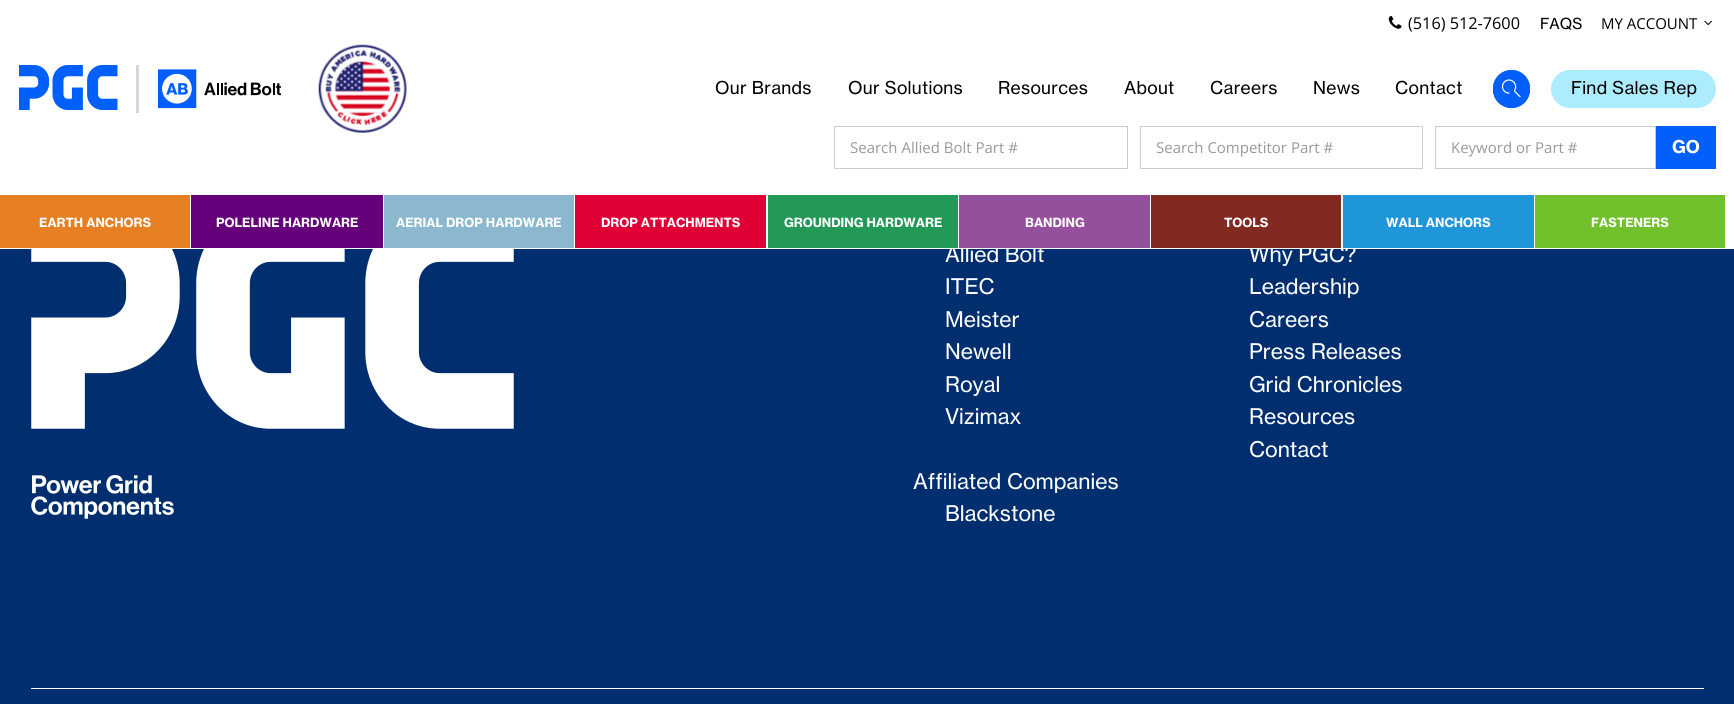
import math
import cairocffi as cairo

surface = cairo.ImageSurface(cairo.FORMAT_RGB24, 1734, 704)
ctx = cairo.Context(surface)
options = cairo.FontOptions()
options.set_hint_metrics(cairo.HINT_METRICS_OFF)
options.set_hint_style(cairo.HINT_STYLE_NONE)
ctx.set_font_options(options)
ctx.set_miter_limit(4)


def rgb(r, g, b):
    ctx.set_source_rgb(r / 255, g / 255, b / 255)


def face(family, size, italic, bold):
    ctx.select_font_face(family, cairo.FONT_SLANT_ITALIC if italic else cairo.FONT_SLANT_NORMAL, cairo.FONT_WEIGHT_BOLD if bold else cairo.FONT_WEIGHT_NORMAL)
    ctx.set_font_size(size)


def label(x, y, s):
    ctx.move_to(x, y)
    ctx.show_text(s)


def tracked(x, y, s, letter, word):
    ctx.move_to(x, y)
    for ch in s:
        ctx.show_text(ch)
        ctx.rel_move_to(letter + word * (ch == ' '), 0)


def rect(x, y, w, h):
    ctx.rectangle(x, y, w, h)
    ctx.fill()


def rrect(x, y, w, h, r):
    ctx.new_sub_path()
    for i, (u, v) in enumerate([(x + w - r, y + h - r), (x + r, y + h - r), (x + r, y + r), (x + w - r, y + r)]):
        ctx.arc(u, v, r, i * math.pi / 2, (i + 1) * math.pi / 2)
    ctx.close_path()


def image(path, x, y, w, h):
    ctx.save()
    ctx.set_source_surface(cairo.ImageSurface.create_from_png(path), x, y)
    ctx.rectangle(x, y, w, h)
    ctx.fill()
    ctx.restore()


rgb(1, 46, 111)
ctx.paint()
rgb(255, 255, 255)
rect(0, 0, 1734, 249)
image('image0.png', 1388, 16, 14, 13)
face('Open Sans', 16.25, 0, 0)
rgb(0, 0, 0)
label(1408, 29, '(516) 512-7600')
face('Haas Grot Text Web', 15, 0, 0)
label(1540, 29, 'FAQS')
face('Open Sans', 15, 0, 0)
label(1601, 29, 'MY ACCOUNT')
image('image1.png', 1704, 20, 8, 6)
image('image2.png', 19, 65, 99, 45)
rgb(214, 214, 214)
rect(136, 65, 3, 48)
image('image3.png', 158, 69, 123, 40)
image('image4.png', 318, 44, 89, 89)
face('Haas Grot Text Web', 17.5, 0, 0)
rgb(0, 0, 0)
tracked(715, 94, 'Our Brands', 0.3, 0)
tracked(848, 94, 'Our Solutions', 0.3, 0)
tracked(998, 94, 'Resources', 0.3, 0)
tracked(1124, 94, 'About', 0.3, 0)
tracked(1210, 94, 'Careers', 0.3, 0)
tracked(1313, 94, 'News', 0.3, 0)
tracked(1395, 94, 'Contact', 0.3, 0)
image('image5.png', 1493, 70, 37, 38)
rgb(173, 236, 254)
rrect(1551, 70, 165, 38, 19)
ctx.fill()
rgb(0, 0, 0)
tracked(1571, 94, 'Find Sales Rep', 0.3, 0)
ctx.rectangle(834.5, 126.5, 293, 42)
rgb(204, 204, 204)
ctx.set_line_width(1)
ctx.stroke()
face('Open Sans', 15, 0, 0)
rgb(153, 153, 153)
label(850, 153, 'Search Allied Bolt Part #')
ctx.rectangle(1140.5, 126.5, 282, 42)
rgb(204, 204, 204)
ctx.stroke()
rgb(153, 153, 153)
label(1156, 153, 'Search Competitor Part #')
ctx.rectangle(1435.5, 126.5, 220, 42)
rgb(204, 204, 204)
ctx.stroke()
rgb(153, 153, 153)
label(1451, 153, 'Keyword or Part #')
rgb(1, 95, 250)
rect(1656, 126, 60, 43)
face('Haas Grot Text Web', 17.5, 0, 1)
rgb(255, 255, 255)
label(1672, 153, 'GO')
rgb(230, 126, 34)
rect(0, 195, 190, 53)
face('Haas Grot Text Web', 12.5, 0, 1)
rgb(255, 255, 255)
label(39, 227, 'EARTH ANCHORS')
rgb(101, 0, 122)
rect(191, 195, 192, 53)
rgb(255, 255, 255)
label(216, 227, 'POLELINE HARDWARE')
rgb(139, 184, 207)
rect(384, 195, 190, 53)
rgb(255, 255, 255)
label(396, 227, 'AERIAL DROP HARDWARE')
rgb(224, 0, 54)
rect(575, 195, 191, 53)
rgb(255, 255, 255)
label(601, 227, 'DROP ATTACHMENTS')
face('Haas Grot Text Web', 21.25, 0, 0)
label(945, 262, 'Allied Bolt')
rgb(34, 153, 87)
rect(768, 195, 190, 53)
face('Haas Grot Text Web', 12.5, 0, 1)
rgb(255, 255, 255)
label(784, 227, 'GROUNDING HARDWARE')
rgb(148, 80, 155)
rect(959, 195, 191, 53)
rgb(255, 255, 255)
label(1025, 227, 'BANDING')
face('Haas Grot Text Web', 21.25, 0, 0)
label(1249, 262, 'Why PGC?')
rgb(130, 41, 33)
rect(1151, 195, 190, 53)
face('Haas Grot Text Web', 12.5, 0, 1)
rgb(255, 255, 255)
label(1224, 227, 'TOOLS')
rgb(31, 150, 216)
rect(1343, 195, 191, 53)
rgb(255, 255, 255)
label(1386, 227, 'WALL ANCHORS')
rgb(114, 192, 44)
rect(1535, 195, 190, 53)
rgb(255, 255, 255)
label(1591, 227, 'FASTENERS')
image('image6.png', 31, 249, 483, 180)
image('image7.png', 31, 475, 143, 44)
face('Haas Grot Text Web', 21.25, 0, 0)
label(945, 294, 'ITEC')
label(945, 327, 'Meister')
label(945, 359, 'Newell')
label(945, 392, 'Royal')
label(945, 424, 'Vizimax')
label(913, 489, 'Affiliated Companies')
label(945, 521, 'Blackstone')
label(1249, 294, 'Leadership')
label(1249, 327, 'Careers')
label(1249, 359, 'Press Releases')
label(1249, 392, 'Grid Chronicles')
label(1249, 424, 'Resources')
label(1249, 457, 'Contact')
rect(31, 688, 1673, 1)
surface.write_to_png('render.png')
